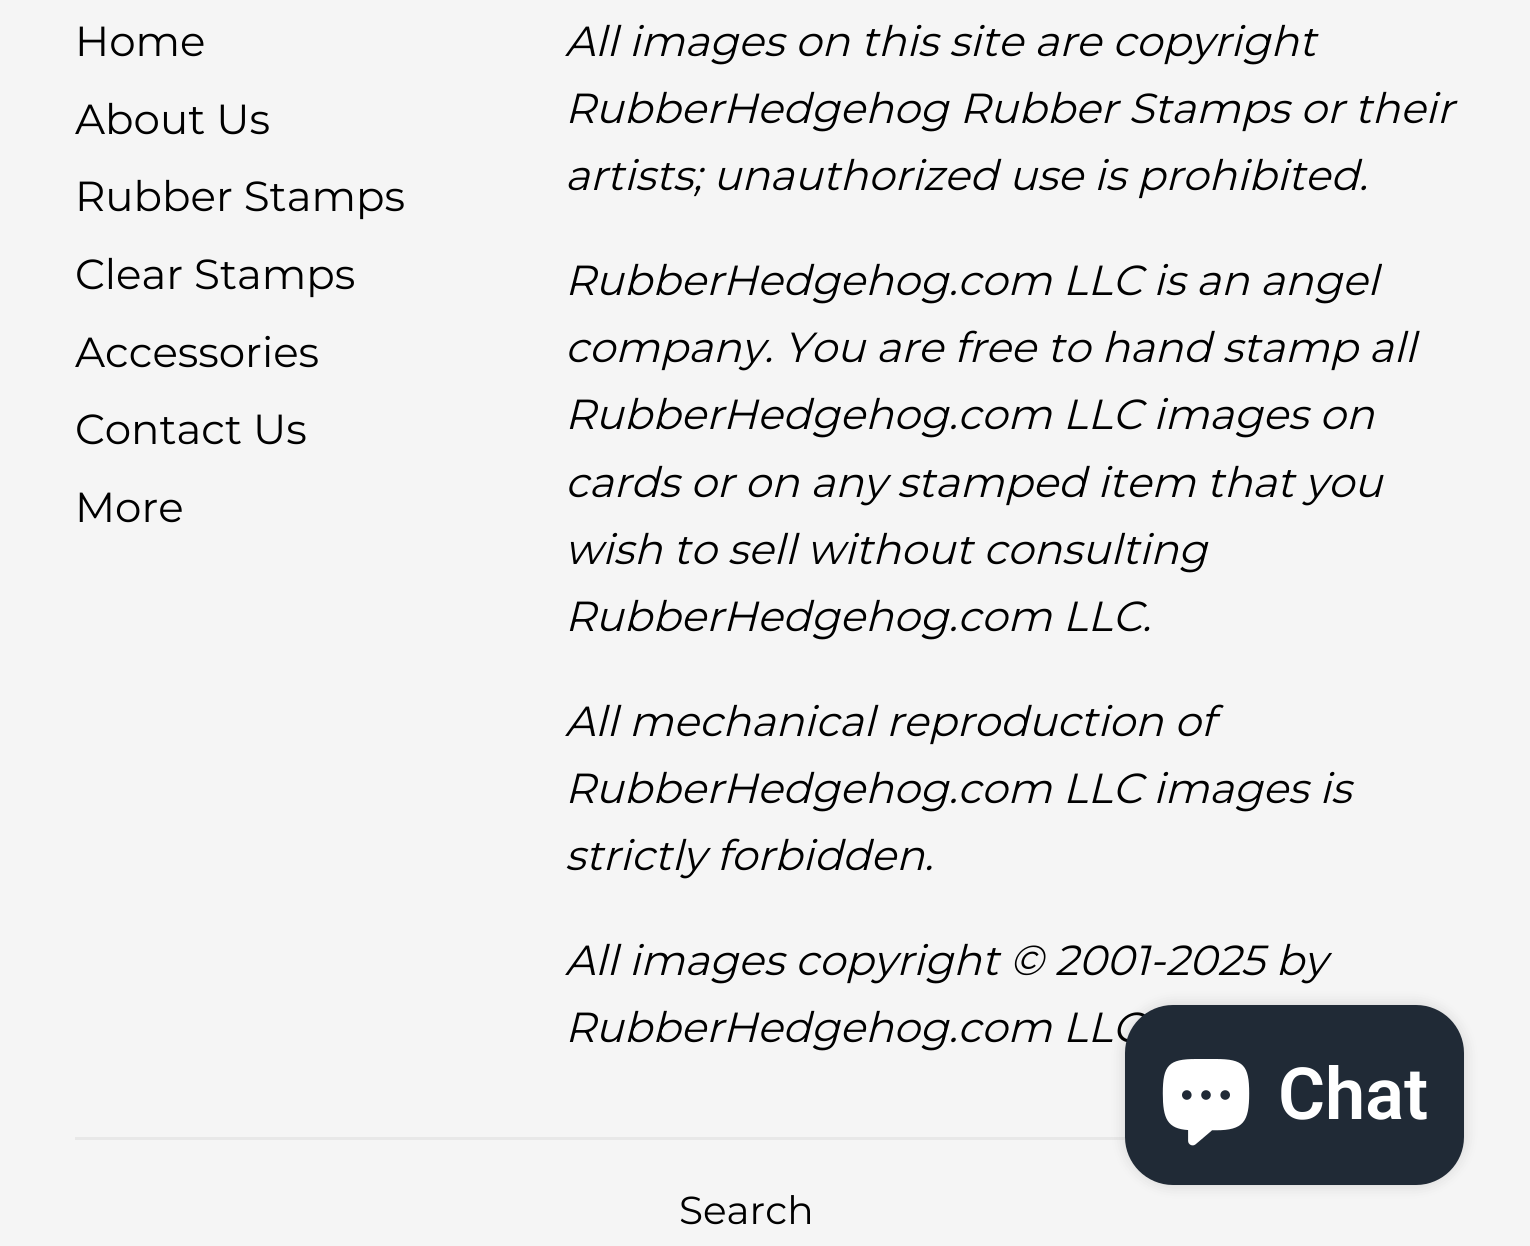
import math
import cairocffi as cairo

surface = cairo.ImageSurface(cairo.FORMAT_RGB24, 1530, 1246)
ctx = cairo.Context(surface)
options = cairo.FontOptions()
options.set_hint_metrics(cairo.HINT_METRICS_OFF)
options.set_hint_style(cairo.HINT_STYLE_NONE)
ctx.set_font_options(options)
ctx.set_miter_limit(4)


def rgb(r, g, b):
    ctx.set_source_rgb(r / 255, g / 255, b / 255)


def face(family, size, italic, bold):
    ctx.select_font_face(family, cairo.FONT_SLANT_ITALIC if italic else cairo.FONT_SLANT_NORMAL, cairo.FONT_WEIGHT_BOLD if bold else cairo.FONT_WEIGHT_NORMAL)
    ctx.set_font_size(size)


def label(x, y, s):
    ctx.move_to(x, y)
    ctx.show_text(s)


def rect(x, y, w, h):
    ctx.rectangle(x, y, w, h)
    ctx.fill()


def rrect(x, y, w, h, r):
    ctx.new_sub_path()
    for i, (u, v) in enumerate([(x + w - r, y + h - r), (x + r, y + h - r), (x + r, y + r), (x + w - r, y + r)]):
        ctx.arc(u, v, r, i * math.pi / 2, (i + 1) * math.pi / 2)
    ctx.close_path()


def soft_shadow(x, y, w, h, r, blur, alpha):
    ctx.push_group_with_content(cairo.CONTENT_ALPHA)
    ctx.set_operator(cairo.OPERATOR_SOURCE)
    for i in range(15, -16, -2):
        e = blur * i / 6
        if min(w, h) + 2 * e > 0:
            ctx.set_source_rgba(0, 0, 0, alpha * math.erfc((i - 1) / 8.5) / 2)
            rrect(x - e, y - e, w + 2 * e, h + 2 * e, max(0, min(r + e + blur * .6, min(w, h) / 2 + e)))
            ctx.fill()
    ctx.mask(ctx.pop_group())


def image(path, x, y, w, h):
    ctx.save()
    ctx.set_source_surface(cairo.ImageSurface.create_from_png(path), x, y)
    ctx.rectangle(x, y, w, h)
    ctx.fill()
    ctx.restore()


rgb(245, 245, 245)
ctx.paint()
face('Montserrat', 42, 0, 0)
rgb(0, 0, 0)
label(75, 56, 'Home')
label(75, 134, 'About Us')
label(75, 211, 'Rubber Stamps')
label(75, 289, 'Clear Stamps')
label(75, 367, 'Accessories')
label(75, 444, 'Contact Us')
label(75, 522, 'More')
face('Montserrat', 42, 1, 0)
label(565, 56, 'All images on this site are copyright')
label(565, 123, 'RubberHedgehog Rubber Stamps or their')
label(565, 190, 'artists; unauthorized use is prohibited.')
label(565, 295, 'RubberHedgehog.com LLC is an angel')
label(565, 362, 'company. You are free to hand stamp all')
label(565, 429, 'RubberHedgehog.com LLC images on')
label(565, 497, 'cards or on any stamped item that you')
label(565, 564, 'wish to sell without consulting')
label(565, 631, 'RubberHedgehog.com LLC.')
label(565, 736, 'All mechanical reproduction of')
label(565, 803, 'RubberHedgehog.com LLC images is')
label(565, 870, 'strictly forbidden.')
label(565, 975, 'All images copyright © 2001-2025 by')
label(565, 1042, 'RubberHedgehog.com LLC')
rgb(232, 232, 232)
rect(75, 1137, 1051, 3)
face('Montserrat', 39, 0, 0)
rgb(0, 0, 0)
label(679, 1224, 'Search')
rgb(0, 0, 0)
soft_shadow(1125, 1005, 339, 180, 48, 7.5, 0.15)
rgb(32, 42, 54)
rrect(1125, 1005, 339, 180, 48)
ctx.fill()
image('image0.png', 1162, 1059, 88, 87)
face('Roboto SemiBold', 72, 0, 0)
rgb(255, 255, 255)
label(1278, 1119, 'Chat')
surface.write_to_png('render.png')
